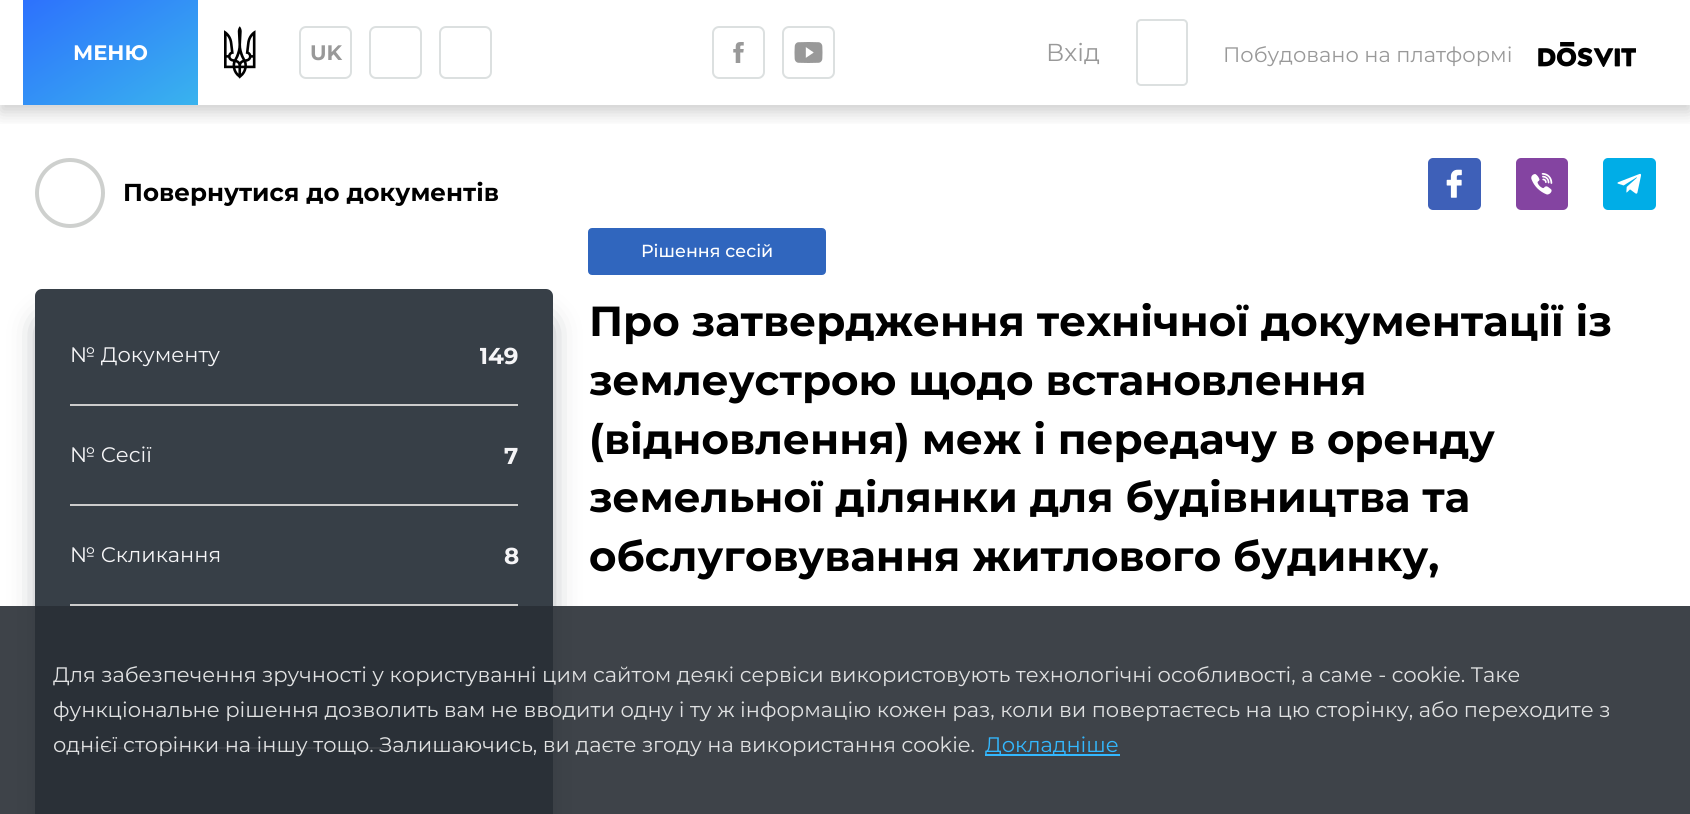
import math
import cairocffi as cairo

surface = cairo.ImageSurface(cairo.FORMAT_RGB24, 1690, 814)
ctx = cairo.Context(surface)
options = cairo.FontOptions()
options.set_hint_metrics(cairo.HINT_METRICS_OFF)
options.set_hint_style(cairo.HINT_STYLE_NONE)
ctx.set_font_options(options)
ctx.set_miter_limit(4)


def rgb(r, g, b):
    ctx.set_source_rgb(r / 255, g / 255, b / 255)


def face(family, size, italic, bold):
    ctx.select_font_face(family, cairo.FONT_SLANT_ITALIC if italic else cairo.FONT_SLANT_NORMAL, cairo.FONT_WEIGHT_BOLD if bold else cairo.FONT_WEIGHT_NORMAL)
    ctx.set_font_size(size)


def label(x, y, s):
    ctx.move_to(x, y)
    ctx.show_text(s)


def rect(x, y, w, h):
    ctx.rectangle(x, y, w, h)
    ctx.fill()


def rrect(x, y, w, h, r):
    ctx.new_sub_path()
    for i, (u, v) in enumerate([(x + w - r, y + h - r), (x + r, y + h - r), (x + r, y + r), (x + w - r, y + r)]):
        ctx.arc(u, v, r, i * math.pi / 2, (i + 1) * math.pi / 2)
    ctx.close_path()


def soft_shadow(x, y, w, h, r, blur, alpha):
    ctx.push_group_with_content(cairo.CONTENT_ALPHA)
    ctx.set_operator(cairo.OPERATOR_SOURCE)
    for i in range(15, -16, -2):
        e = blur * i / 6
        if min(w, h) + 2 * e > 0:
            ctx.set_source_rgba(0, 0, 0, alpha * math.erfc((i - 1) / 8.5) / 2)
            rrect(x - e, y - e, w + 2 * e, h + 2 * e, max(0, min(r + e + blur * .6, min(w, h) / 2 + e)))
            ctx.fill()
    ctx.mask(ctx.pop_group())


def image(path, x, y, w, h):
    ctx.save()
    ctx.set_source_surface(cairo.ImageSurface.create_from_png(path), x, y)
    ctx.rectangle(x, y, w, h)
    ctx.fill()
    ctx.restore()


rgb(255, 255, 255)
ctx.paint()
ctx.save()
ctx.rectangle(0, 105, 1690, 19)
ctx.clip()
rgb(0, 0, 0)
soft_shadow(0, 7, 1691, 105, 0, 9, 0.2)
ctx.restore()
gradient = cairo.LinearGradient(60, -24, 160, 129)
gradient.add_color_stop_rgba(0, 0.176, 0.443, 0.992, 1)
gradient.add_color_stop_rgba(1, 0.224, 0.702, 0.933, 1)
ctx.set_source(gradient)
rect(23, 0, 175, 105)
face('Montserrat', 21, 0, 1)
rgb(255, 255, 255)
label(73, 60, 'МЕНЮ')
image('image0.png', 224, 26, 32, 53)
rrect(300, 27, 51, 51, 6)
rgb(220, 224, 224)
ctx.stroke()
rgb(153, 153, 153)
label(310, 60, 'UK')
rrect(370, 27, 51, 51, 6)
rgb(220, 224, 224)
ctx.stroke()
rrect(440, 27, 51, 51, 6)
ctx.stroke()
rrect(713, 27, 51, 51, 6)
ctx.stroke()
image('image1.png', 733, 42, 11, 21)
rrect(783, 27, 51, 51, 6)
ctx.stroke()
image('image2.png', 794, 42, 29, 21)
face('Montserrat', 24.5, 0, 0)
rgb(153, 153, 153)
label(1046, 61, 'Вхід')
rrect(1137, 20, 50, 65, 4)
rgb(220, 224, 224)
ctx.stroke()
face('Montserrat', 21, 0, 0)
rgb(153, 153, 153)
label(1223, 62, 'Побудовано на платформі')
image('image3.png', 1538, 42, 98, 25)
ctx.arc(70, 193, 33, 0, 2 * math.pi)
rgb(206, 208, 206)
ctx.set_line_width(4)
ctx.stroke()
face('Montserrat', 24.5, 0, 1)
rgb(0, 0, 0)
label(123, 201, 'Повернутися до документів')
rgb(55, 63, 71)
soft_shadow(46, 326, 497, 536, 0, 16, 0.7)
rgb(55, 63, 71)
rrect(35, 289, 518, 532, 7)
ctx.fill()
rgb(204, 204, 204)
rect(70, 404, 448, 2)
face('Montserrat', 21, 0, 0)
rgb(245, 245, 247)
label(70, 362, '№ Документу')
ctx.save()
ctx.rectangle(480, 341, 38, 28)
ctx.clip()
face('Montserrat', 23, 0, 1)
label(479, 364, '149')
ctx.restore()
rgb(204, 204, 204)
rect(70, 504, 448, 2)
rgb(245, 245, 247)
label(70, 462, '№ Сесії')
face('Montserrat', 23, 0, 1)
label(504, 464, '7')
rgb(204, 204, 204)
rect(70, 604, 448, 2)
face('Montserrat', 21, 0, 0)
rgb(245, 245, 247)
label(70, 562, '№ Скликання')
face('Montserrat', 23, 0, 1)
label(504, 564, '8')
rgb(204, 204, 204)
rect(70, 747, 448, 2)
rgb(62, 96, 184)
rrect(1428, 158, 53, 52, 5)
ctx.fill()
image('image4.png', 1446, 169, 16, 29)
rgb(132, 68, 161)
rrect(1516, 158, 52, 52, 5)
ctx.fill()
image('image5.png', 1531, 173, 22, 22)
rgb(0, 173, 231)
rrect(1603, 158, 53, 52, 5)
ctx.fill()
image('image6.png', 1617, 173, 24, 21)
rgb(48, 102, 190)
rrect(589, 229, 236, 45, 3)
ctx.fill_preserve()
ctx.set_line_width(2)
ctx.stroke()
face('Montserrat Medium', 17.5, 0, 0)
rgb(255, 255, 255)
label(641, 257, 'Рішення сесій')
face('Montserrat', 42, 0, 1)
rgb(0, 0, 0)
label(589, 336, 'Про затвердження технічної документації із')
label(589, 395, 'землеустрою щодо встановлення')
label(589, 454, '(відновлення) меж і передачу в оренду')
label(589, 512, 'земельної ділянки для будівництва та')
label(589, 571, 'обслуговування житлового будинку,')
ctx.set_source_rgba(0.161, 0.184, 0.212, 0.9)
rect(0, 606, 1690, 208)
face('Montserrat', 21, 0, 0)
rgb(224, 225, 226)
label(53, 682, 'Для забезпечення зручності у користуванні цим сайтом деякі сервіси використовують технологічні особливості, а саме - cookie. Таке')
label(53, 717, 'функціональне рішення дозволить вам не вводити одну і ту ж інформацію кожен раз, коли ви повертаєтесь на цю сторінку, або переходите з')
label(53, 752, 'однієї сторінки на іншу тощо. Залишаючись, ви даєте згоду на використання cookie.')
rgb(51, 184, 255)
rect(985, 754, 135, 2)
label(985, 752, 'Докладніше')
surface.write_to_png('render.png')
